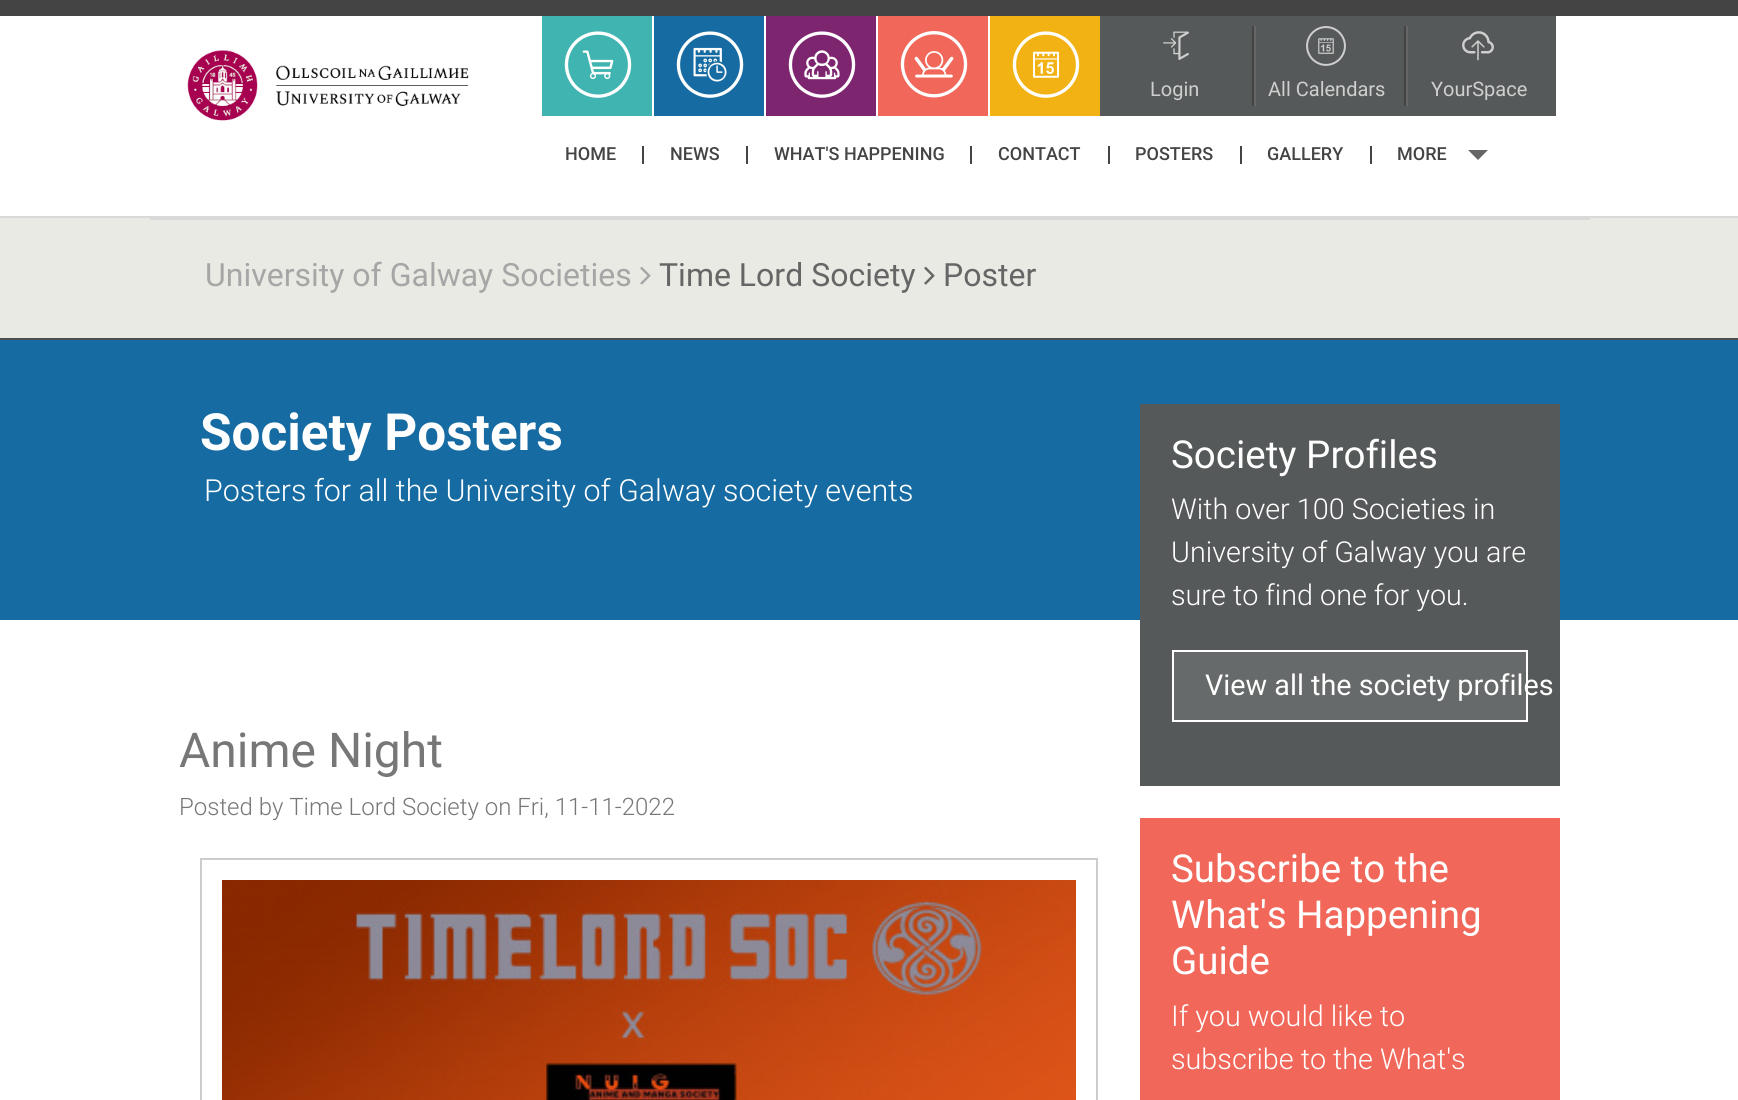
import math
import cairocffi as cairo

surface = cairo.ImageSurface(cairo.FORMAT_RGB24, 1738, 1100)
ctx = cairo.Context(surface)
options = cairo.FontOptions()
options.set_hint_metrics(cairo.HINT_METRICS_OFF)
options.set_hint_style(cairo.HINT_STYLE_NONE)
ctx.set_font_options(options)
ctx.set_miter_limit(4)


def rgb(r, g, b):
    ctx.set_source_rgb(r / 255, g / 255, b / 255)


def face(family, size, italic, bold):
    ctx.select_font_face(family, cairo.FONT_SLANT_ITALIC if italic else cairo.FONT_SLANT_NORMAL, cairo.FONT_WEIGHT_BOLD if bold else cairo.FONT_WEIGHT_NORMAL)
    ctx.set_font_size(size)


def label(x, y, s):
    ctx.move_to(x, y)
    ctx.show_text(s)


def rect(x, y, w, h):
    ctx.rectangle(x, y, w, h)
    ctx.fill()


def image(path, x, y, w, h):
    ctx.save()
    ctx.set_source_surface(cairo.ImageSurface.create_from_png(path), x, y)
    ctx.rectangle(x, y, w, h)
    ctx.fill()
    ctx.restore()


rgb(255, 255, 255)
ctx.paint()
rgb(68, 68, 68)
rect(0, 0, 1738, 16)
image('image0.png', 187, 50, 282, 71)
rgb(64, 180, 176)
rect(542, 16, 110, 100)
image('image1.png', 564, 31, 68, 67)
rgb(22, 107, 162)
rect(654, 16, 110, 100)
image('image2.png', 676, 31, 68, 67)
rgb(125, 37, 111)
rect(766, 16, 110, 100)
image('image3.png', 788, 31, 68, 67)
rgb(241, 103, 90)
rect(878, 16, 110, 100)
image('image4.png', 900, 31, 68, 67)
rgb(242, 178, 20)
rect(990, 16, 110, 100)
image('image5.png', 1012, 31, 68, 67)
rgb(86, 89, 89)
rect(1100, 16, 456, 100)
image('image6.png', 1163, 31, 26, 29)
face('Roboto', 20, 0, 0)
rgb(207, 207, 207)
label(1150, 96, 'Login')
rgb(102, 102, 102)
rect(1254, 26, 2, 80)
rgb(68, 68, 68)
rect(1252, 26, 2, 80)
image('image7.png', 1306, 26, 40, 40)
rgb(207, 207, 207)
label(1268, 96, 'All Calendars')
rgb(102, 102, 102)
rect(1406, 26, 2, 80)
rgb(68, 68, 68)
rect(1404, 26, 2, 80)
image('image8.png', 1462, 31, 32, 30)
rgb(207, 207, 207)
label(1431, 96, 'YourSpace')
rgb(68, 68, 68)
rect(642, 146, 2, 18)
face('Roboto Medium', 18, 0, 0)
label(565, 160, 'HOME')
rect(746, 146, 2, 18)
label(670, 160, 'NEWS')
rect(970, 146, 2, 18)
label(774, 160, 'WHAT\'S HAPPENING')
rect(1108, 146, 2, 18)
label(998, 160, 'CONTACT')
rect(1240, 146, 2, 18)
label(1135, 160, 'POSTERS')
rect(1370, 146, 2, 18)
label(1267, 160, 'GALLERY')
label(1397, 160, 'MORE')
rgb(102, 102, 102)
ctx.new_path()
ctx.move_to(1468, 150)
ctx.line_to(1488, 150)
ctx.line_to(1478, 160)
ctx.close_path()
ctx.fill()
rgb(233, 234, 228)
rect(0, 218, 1738, 120)
rgb(217, 217, 217)
rect(0, 216, 1738, 2)
rect(150, 218, 1440, 2)
face('Roboto', 32, 0, 0)
rgb(166, 166, 166)
label(205, 286, 'University of Galway Societies')
image('image9.png', 640, 266, 11, 19)
rgb(102, 102, 102)
label(659, 286, 'Time Lord Society')
image('image10.png', 924, 266, 11, 19)
label(943, 286, 'Poster')
rgb(22, 107, 162)
rect(0, 340, 1738, 280)
rgb(78, 78, 80)
rect(0, 338, 1738, 2)
face('Roboto', 51.25, 0, 1)
rgb(255, 255, 255)
label(200, 450, 'Society Posters')
face('Roboto Light', 30.4, 0, 0)
label(204, 501, 'Posters for all the University of Galway society events')
rgb(86, 89, 89)
rect(1140, 404, 420, 382)
face('Roboto', 38.5, 0, 0)
rgb(255, 255, 255)
label(1171, 468, 'Society Profiles')
face('Roboto Light', 28.75, 0, 0)
label(1171, 519, 'With over 100 Societies in')
label(1171, 562, 'University of Galway you are')
label(1171, 605, 'sure to find one for you.')
rgb(103, 106, 106)
ctx.rectangle(1173, 651, 354, 70)
ctx.fill_preserve()
rgb(255, 255, 255)
ctx.stroke()
face('Roboto', 28.75, 0, 0)
label(1205, 695, 'View all the society profiles')
face('Roboto', 48, 0, 0)
rgb(119, 119, 119)
label(179, 767, 'Anime Night')
face('Roboto Light', 24, 0, 0)
label(179, 815, 'Posted by Time Lord Society on Fri, 11-11-2022')
ctx.rectangle(201, 859, 896, 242)
rgb(204, 204, 204)
ctx.stroke()
image('image11.png', 222, 880, 854, 220)
rgb(241, 103, 90)
rect(1140, 818, 420, 282)
face('Roboto', 38.5, 0, 0)
rgb(255, 255, 255)
label(1171, 882, 'Subscribe to the')
label(1171, 928, 'What\'s Happening')
label(1171, 974, 'Guide')
face('Roboto Light', 28.75, 0, 0)
label(1171, 1026, 'If you would like to')
label(1171, 1069, 'subscribe to the What\'s')
surface.write_to_png('render.png')
